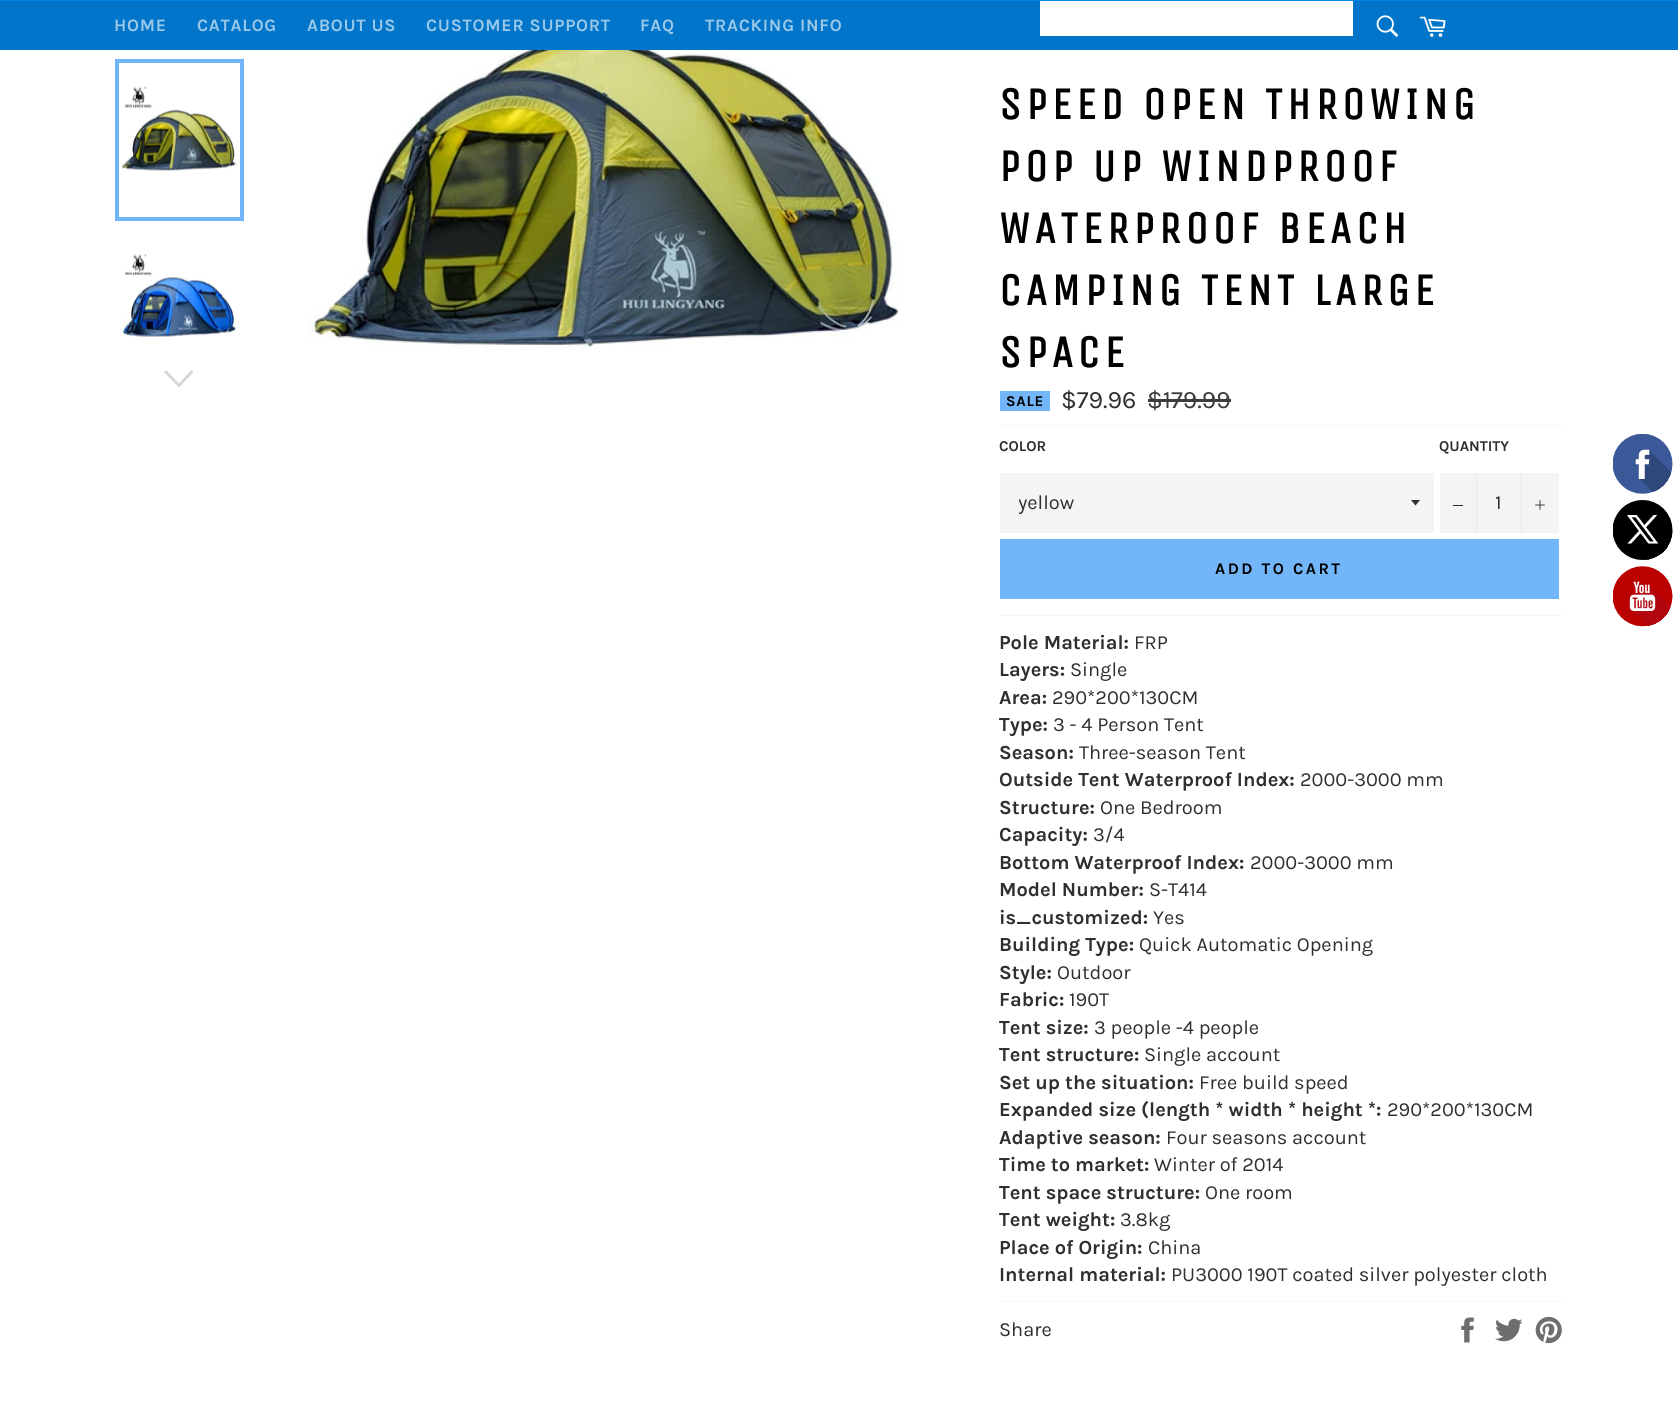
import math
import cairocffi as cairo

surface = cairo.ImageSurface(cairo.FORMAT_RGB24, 1678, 1426)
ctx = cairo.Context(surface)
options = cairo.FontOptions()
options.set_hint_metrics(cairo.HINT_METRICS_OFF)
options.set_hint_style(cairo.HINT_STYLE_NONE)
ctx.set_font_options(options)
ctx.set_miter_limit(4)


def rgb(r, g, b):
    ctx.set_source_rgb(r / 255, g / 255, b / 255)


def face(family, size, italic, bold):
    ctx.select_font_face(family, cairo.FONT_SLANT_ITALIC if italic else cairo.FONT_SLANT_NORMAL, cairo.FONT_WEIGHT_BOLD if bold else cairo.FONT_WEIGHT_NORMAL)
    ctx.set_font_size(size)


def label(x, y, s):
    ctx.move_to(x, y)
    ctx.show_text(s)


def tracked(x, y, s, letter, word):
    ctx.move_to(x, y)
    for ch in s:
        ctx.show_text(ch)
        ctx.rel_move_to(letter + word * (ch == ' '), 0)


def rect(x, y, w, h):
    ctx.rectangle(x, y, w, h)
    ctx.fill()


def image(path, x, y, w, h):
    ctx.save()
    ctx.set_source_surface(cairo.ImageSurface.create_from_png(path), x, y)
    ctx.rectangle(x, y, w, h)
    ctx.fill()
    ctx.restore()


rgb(255, 255, 255)
ctx.paint()
rgb(0, 117, 201)
rect(0, 1, 1678, 49)
rgb(0, 132, 227)
rect(0, 0, 1678, 1)
face('Karla', 17.5, 0, 1)
rgb(153, 200, 233)
tracked(114, 31, 'HOME', 0.75, 0)
tracked(197, 31, 'CATALOG', 0.75, 0)
tracked(307, 31, 'ABOUT US', 0.75, 0)
tracked(426, 31, 'CUSTOMER SUPPORT', 0.75, 0)
tracked(640, 31, 'FAQ', 0.75, 0)
tracked(705, 31, 'TRACKING INFO', 0.75, 0)
rgb(255, 255, 255)
rect(1040, 1, 313, 35)
image('image0.png', 1376, 15, 23, 22)
image('image1.png', 1419, 16, 27, 21)
image('image2.png', 122, 86, 116, 85)
ctx.rectangle(117, 61, 125, 158)
rgb(115, 181, 249)
ctx.set_line_width(4)
ctx.stroke()
image('image3.png', 121, 254, 116, 83)
rgb(213, 213, 213)
ctx.new_path()
ctx.move_to(191.5, 370)
ctx.line_to(193.5, 372)
ctx.line_to(179, 387.5)
ctx.line_to(164, 372)
ctx.line_to(166, 370)
ctx.line_to(179, 383.5)
ctx.close_path()
ctx.fill()
image('image4.png', 309, 50, 590, 299)
face('Unica One', 45, 0, 1)
rgb(0, 0, 0)
tracked(999, 119, 'SPEED OPEN THROWING', 4.5, 0)
tracked(999, 181, 'POP UP WINDPROOF', 4.5, 0)
tracked(999, 243, 'WATERPROOF BEACH', 4.5, 0)
tracked(999, 305, 'CAMPING TENT LARGE', 4.5, 0)
tracked(999, 367, 'SPACE', 4.5, 0)
rgb(115, 181, 249)
rect(1000, 391, 50, 20)
face('Karla', 15, 0, 1)
rgb(0, 0, 0)
tracked(1006, 406, 'SALE', 0.75, 0)
face('Karla', 25, 0, 0)
rgb(47, 47, 47)
label(1061, 408, '$79.96')
rgb(60, 60, 60)
label(1147, 408, '$179.99')
rect(1148, 399, 83, 3)
rgb(247, 247, 247)
rect(1000, 425, 565, 1)
face('Karla', 15, 0, 1)
rgb(47, 47, 47)
label(999, 451, 'COLOR')
rgb(244, 244, 244)
rect(1000, 473, 434, 60)
rgb(47, 47, 47)
ctx.new_path()
ctx.move_to(1411, 500)
ctx.line_to(1415.5, 505.5)
ctx.line_to(1420, 500)
ctx.close_path()
ctx.fill()
ctx.save()
ctx.rectangle(1019, 489, 380, 27)
ctx.clip()
face('Karla', 20, 0, 0)
label(1018, 509, 'yellow')
ctx.restore()
label(1439, 451, 'QUANTITY')
rgb(244, 244, 244)
rect(1440, 473, 119, 60)
rgb(231, 231, 231)
rect(1476, 473, 1, 60)
rgb(47, 47, 47)
rect(1453, 505, 10, 1)
face('Karla', 20, 0, 0)
label(1495, 509, '1')
rgb(231, 231, 231)
rect(1521, 473, 1, 60)
image('image5.png', 1535, 500, 10, 10)
rgb(115, 181, 249)
rect(1000, 539, 559, 60)
face('Karla', 16.25, 0, 1)
rgb(0, 0, 0)
tracked(1215, 574, 'ADD TO CART', 2.5, 0)
rgb(247, 247, 247)
rect(1000, 615, 565, 1)
face('Karla', 20, 0, 1)
rgb(47, 47, 47)
label(999, 649, 'Pole Material:')
face('Karla', 20, 0, 0)
label(1134, 649, 'FRP')
face('Karla', 20, 0, 1)
label(999, 676, 'Layers:')
face('Karla', 20, 0, 0)
label(1070, 676, 'Single')
face('Karla', 20, 0, 1)
label(999, 704, 'Area:')
face('Karla', 20, 0, 0)
label(1052, 704, '290*200*130CM')
face('Karla', 20, 0, 1)
label(999, 731, 'Type:')
face('Karla', 20, 0, 0)
label(1053, 731, '3 - 4 Person Tent')
face('Karla', 20, 0, 1)
label(999, 759, 'Season:')
face('Karla', 20, 0, 0)
label(1079, 759, 'Three-season Tent')
face('Karla', 20, 0, 1)
label(999, 786, 'Outside Tent Waterproof Index:')
face('Karla', 20, 0, 0)
label(1300, 786, '2000-3000 mm')
face('Karla', 20, 0, 1)
label(999, 814, 'Structure:')
face('Karla', 20, 0, 0)
label(1100, 814, 'One Bedroom')
face('Karla', 20, 0, 1)
label(999, 841, 'Capacity:')
face('Karla', 20, 0, 0)
label(1093, 841, '3/4')
face('Karla', 20, 0, 1)
label(999, 869, 'Bottom Waterproof Index:')
face('Karla', 20, 0, 0)
label(1250, 869, '2000-3000 mm')
face('Karla', 20, 0, 1)
label(999, 896, 'Model Number:')
face('Karla', 20, 0, 0)
label(1149, 896, 'S-T414')
face('Karla', 20, 0, 1)
label(999, 924, 'is_customized:')
face('Karla', 20, 0, 0)
label(1153, 924, 'Yes')
face('Karla', 20, 0, 1)
label(999, 951, 'Building Type:')
face('Karla', 20, 0, 0)
label(1139, 951, 'Quick Automatic Opening')
face('Karla', 20, 0, 1)
label(999, 979, 'Style:')
face('Karla', 20, 0, 0)
label(1057, 979, 'Outdoor')
face('Karla', 20, 0, 1)
label(999, 1006, 'Fabric:')
face('Karla', 20, 0, 0)
label(1069, 1006, '190T')
face('Karla', 20, 0, 1)
label(999, 1034, 'Tent size:')
face('Karla', 20, 0, 0)
label(1094, 1034, '3 people -4 people')
face('Karla', 20, 0, 1)
label(999, 1061, 'Tent structure:')
face('Karla', 20, 0, 0)
label(1144, 1061, 'Single account')
face('Karla', 20, 0, 1)
label(999, 1089, 'Set up the situation:')
face('Karla', 20, 0, 0)
label(1199, 1089, 'Free build speed')
face('Karla', 20, 0, 1)
label(999, 1116, 'Expanded size (length * width * height *:')
face('Karla', 20, 0, 0)
label(1387, 1116, '290*200*130CM')
face('Karla', 20, 0, 1)
label(999, 1144, 'Adaptive season:')
face('Karla', 20, 0, 0)
label(1166, 1144, 'Four seasons account')
face('Karla', 20, 0, 1)
label(999, 1171, 'Time to market:')
face('Karla', 20, 0, 0)
label(1154, 1171, 'Winter of 2014')
face('Karla', 20, 0, 1)
label(999, 1199, 'Tent space structure:')
face('Karla', 20, 0, 0)
label(1205, 1199, 'One room')
face('Karla', 20, 0, 1)
label(999, 1226, 'Tent weight:')
face('Karla', 20, 0, 0)
label(1120, 1226, '3.8kg')
face('Karla', 20, 0, 1)
label(999, 1254, 'Place of Origin:')
face('Karla', 20, 0, 0)
label(1148, 1254, 'China')
face('Karla', 20, 0, 1)
label(999, 1281, 'Internal material:')
face('Karla', 20, 0, 0)
label(1171, 1281, 'PU3000 190T coated silver polyester cloth')
rgb(247, 247, 247)
rect(1000, 1301, 565, 1)
rgb(47, 47, 47)
label(999, 1336, 'Share')
image('image6.png', 1461, 1317, 13, 26)
image('image7.png', 1495, 1318, 28, 24)
image('image8.png', 1535, 1316, 27, 28)
image('image9.png', 1613, 434, 60, 193)
surface.write_to_png('render.png')
